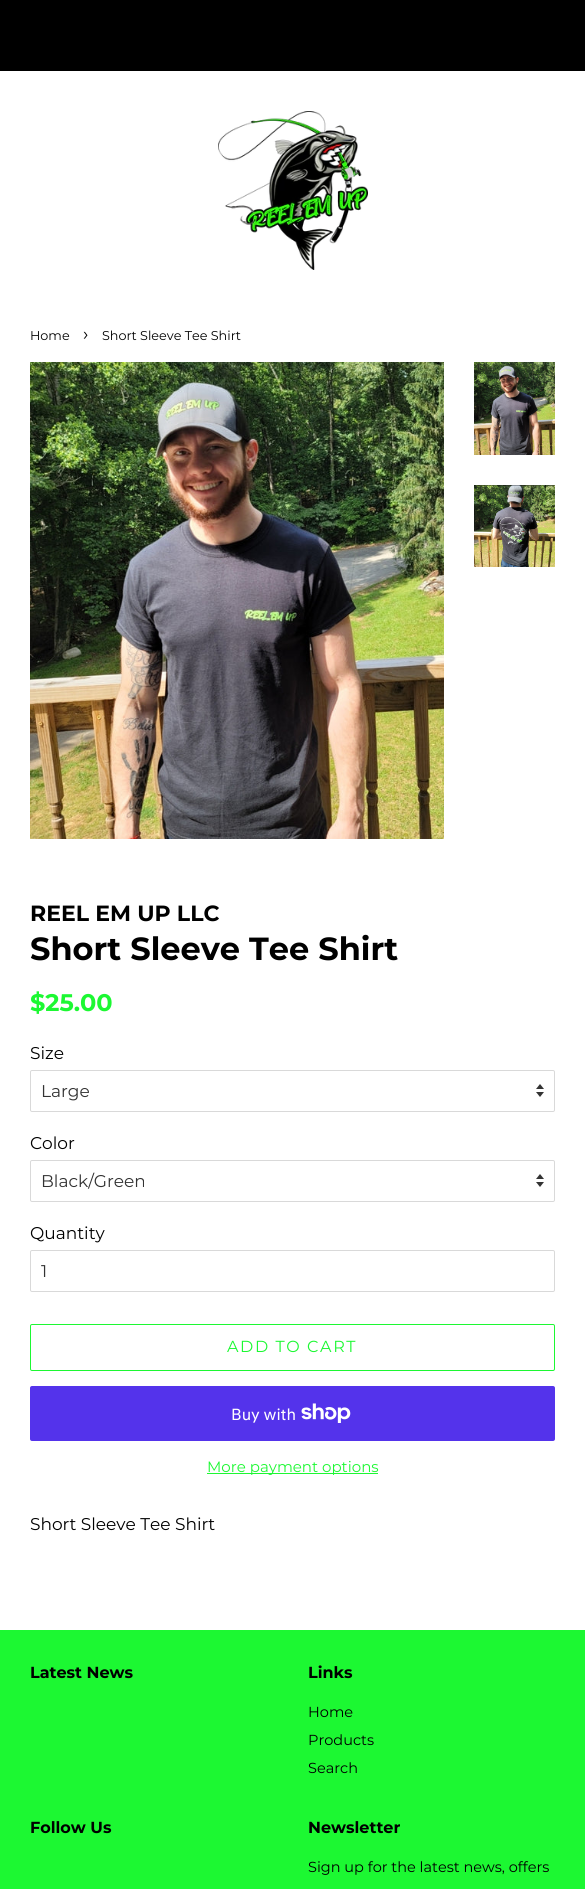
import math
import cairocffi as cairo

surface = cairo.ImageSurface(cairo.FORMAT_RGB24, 585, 1889)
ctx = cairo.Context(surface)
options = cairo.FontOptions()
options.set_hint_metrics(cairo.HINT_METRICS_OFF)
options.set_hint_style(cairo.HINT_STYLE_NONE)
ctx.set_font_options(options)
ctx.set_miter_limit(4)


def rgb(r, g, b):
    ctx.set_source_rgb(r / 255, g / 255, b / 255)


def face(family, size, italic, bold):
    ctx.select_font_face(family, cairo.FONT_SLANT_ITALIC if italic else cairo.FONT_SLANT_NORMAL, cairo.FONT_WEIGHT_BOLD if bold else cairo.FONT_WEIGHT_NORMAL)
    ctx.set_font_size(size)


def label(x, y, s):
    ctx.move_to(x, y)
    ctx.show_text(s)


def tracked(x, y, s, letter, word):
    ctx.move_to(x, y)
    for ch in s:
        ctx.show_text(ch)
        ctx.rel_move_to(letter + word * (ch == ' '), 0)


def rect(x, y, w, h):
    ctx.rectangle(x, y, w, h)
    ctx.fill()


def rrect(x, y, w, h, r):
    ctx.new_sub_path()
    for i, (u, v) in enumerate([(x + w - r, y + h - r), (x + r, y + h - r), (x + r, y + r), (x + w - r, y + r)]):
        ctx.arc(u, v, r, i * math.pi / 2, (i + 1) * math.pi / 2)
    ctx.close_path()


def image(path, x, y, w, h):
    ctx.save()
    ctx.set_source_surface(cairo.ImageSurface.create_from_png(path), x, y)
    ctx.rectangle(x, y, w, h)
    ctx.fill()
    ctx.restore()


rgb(255, 255, 255)
ctx.paint()
rgb(0, 0, 0)
rect(0, 0, 585, 71)
image('image0.png', 218, 111, 150, 159)
face('Montserrat', 12.75, 0, 0)
label(30, 340, 'Home')
face('Montserrat', 18, 0, 0)
label(83, 340, '›')
face('Montserrat', 12.75, 0, 0)
label(102, 340, 'Short Sleeve Tee Shirt')
image('image1.png', 30, 362, 414, 477)
image('image2.png', 474, 362, 81, 93)
image('image3.png', 474, 485, 81, 82)
face('Montserrat', 22, 0, 1)
label(30, 921, 'REEL EM UP LLC')
face('Montserrat', 32, 0, 1)
label(30, 960, 'Short Sleeve Tee Shirt')
face('Montserrat', 24, 0, 1)
rgb(28, 248, 50)
label(30, 1011, '$25.00')
face('Montserrat', 17, 0, 0)
rgb(0, 0, 0)
label(30, 1059, 'Size')
image('image4.png', 536, 1084, 8, 13)
rrect(30.5, 1070.5, 524, 41, 1.5)
rgb(217, 217, 217)
ctx.set_line_width(1)
ctx.stroke()
rgb(51, 51, 51)
label(41, 1097, 'Large')
rgb(0, 0, 0)
label(30, 1149, 'Color')
image('image4.png', 536, 1174, 8, 13)
rrect(30.5, 1160.5, 524, 41, 1.5)
rgb(217, 217, 217)
ctx.stroke()
rgb(51, 51, 51)
label(41, 1187, 'Black/Green')
rgb(0, 0, 0)
label(30, 1239, 'Quantity')
rrect(30.5, 1250.5, 524, 41, 1.5)
rgb(217, 217, 217)
ctx.stroke()
rgb(51, 51, 51)
label(41, 1277, '1')
rrect(30.5, 1324.5, 524, 46, 1.5)
rgb(28, 248, 50)
ctx.stroke()
face('Montserrat', 16, 0, 0)
tracked(227, 1352, 'ADD TO CART', 1.6, 0)
rgb(84, 51, 235)
rrect(30, 1386, 525, 55, 2)
ctx.fill()
face('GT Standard', 16, 0, 0)
rgb(255, 255, 255)
label(231, 1420, 'Buy with')
image('image5.png', 301, 1403, 50, 20)
rgb(28, 248, 50)
rect(207, 1473, 171, 1)
face('Montserrat', 15, 0, 0)
label(207, 1472, 'More payment options')
face('Montserrat', 17, 0, 0)
rgb(0, 0, 0)
label(30, 1530, 'Short Sleeve Tee Shirt')
rgb(28, 248, 50)
rect(0, 1630, 585, 259)
face('Montserrat', 16, 0, 1)
rgb(0, 0, 0)
label(30, 1678, 'Latest News')
label(308, 1678, 'Links')
face('Montserrat', 14.5, 0, 0)
label(308, 1717, 'Home')
label(308, 1745, 'Products')
label(308, 1773, 'Search')
face('Montserrat', 16, 0, 1)
label(30, 1833, 'Follow Us')
label(308, 1833, 'Newsletter')
face('Montserrat', 14.5, 0, 0)
label(308, 1872, 'Sign up for the latest news, offers')
surface.write_to_png('render.png')
